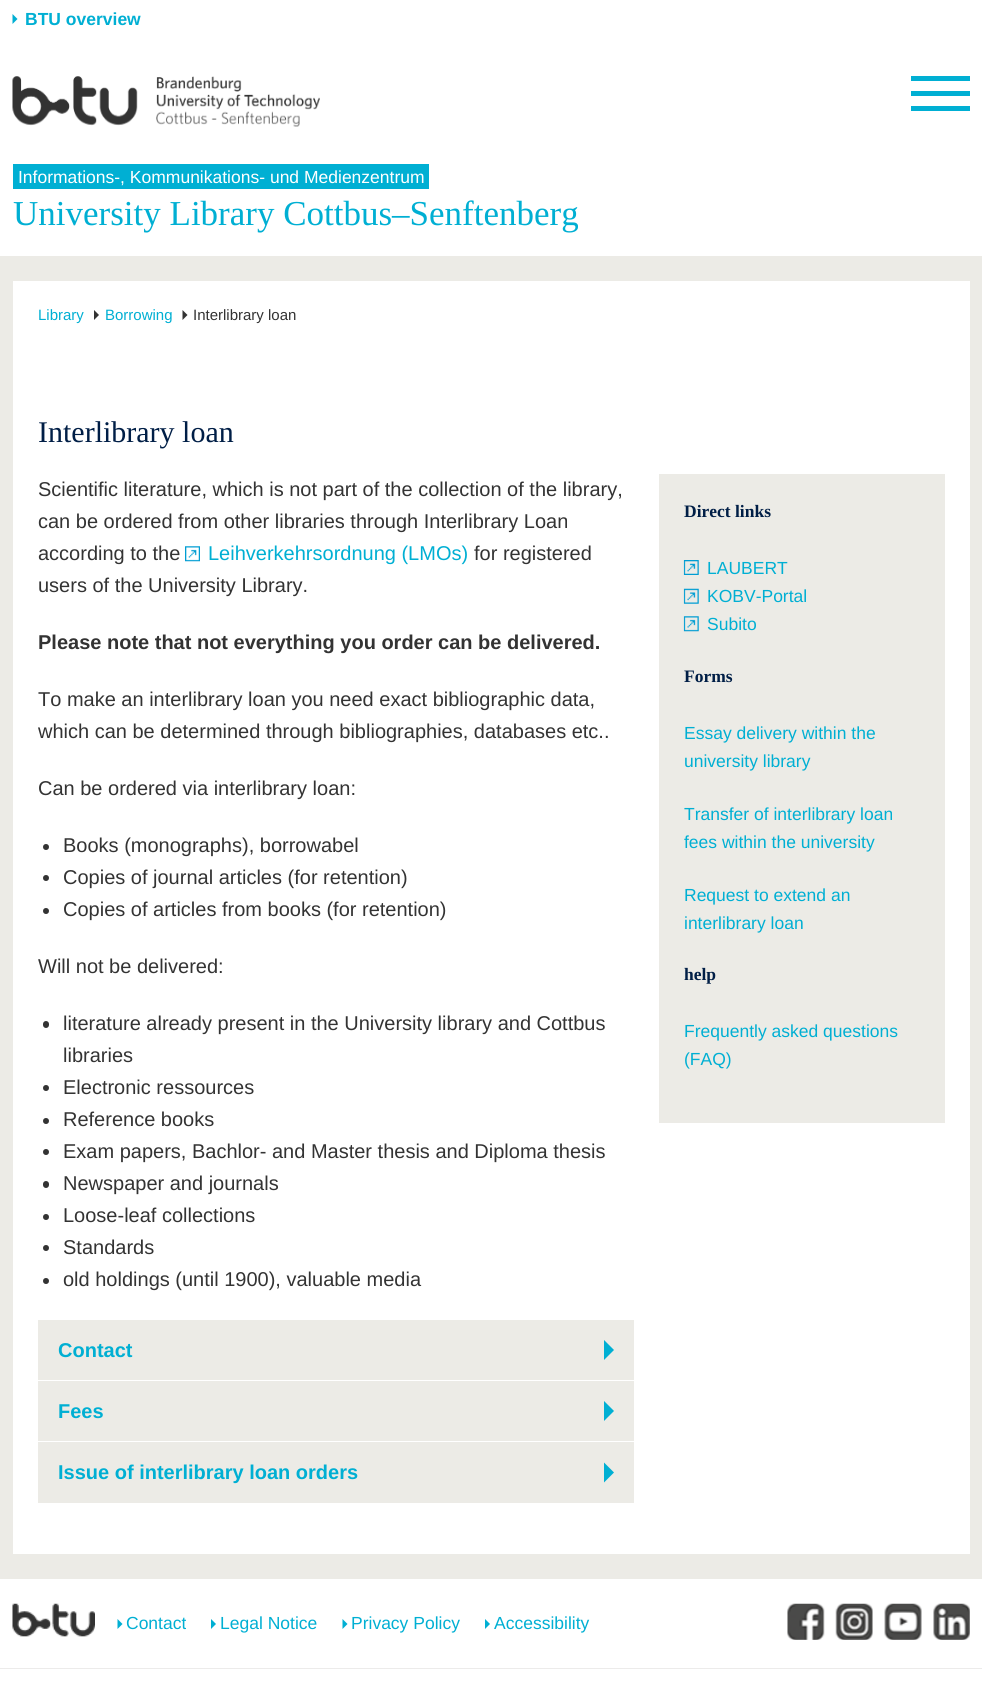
import math
import cairocffi as cairo

surface = cairo.ImageSurface(cairo.FORMAT_RGB24, 982, 1702)
ctx = cairo.Context(surface)
options = cairo.FontOptions()
options.set_hint_metrics(cairo.HINT_METRICS_OFF)
options.set_hint_style(cairo.HINT_STYLE_NONE)
ctx.set_font_options(options)
ctx.set_miter_limit(4)


def rgb(r, g, b):
    ctx.set_source_rgb(r / 255, g / 255, b / 255)


def face(family, size, italic, bold):
    ctx.select_font_face(family, cairo.FONT_SLANT_ITALIC if italic else cairo.FONT_SLANT_NORMAL, cairo.FONT_WEIGHT_BOLD if bold else cairo.FONT_WEIGHT_NORMAL)
    ctx.set_font_size(size)


def label(x, y, s):
    ctx.move_to(x, y)
    ctx.show_text(s)


def rect(x, y, w, h):
    ctx.rectangle(x, y, w, h)
    ctx.fill()


def rrect(x, y, w, h, r):
    ctx.new_sub_path()
    for i, (u, v) in enumerate([(x + w - r, y + h - r), (x + r, y + h - r), (x + r, y + r), (x + w - r, y + r)]):
        ctx.arc(u, v, r, i * math.pi / 2, (i + 1) * math.pi / 2)
    ctx.close_path()


def image(path, x, y, w, h):
    ctx.save()
    ctx.set_source_surface(cairo.ImageSurface.create_from_png(path), x, y)
    ctx.rectangle(x, y, w, h)
    ctx.fill()
    ctx.restore()


rgb(255, 255, 255)
ctx.paint()
rgb(0, 175, 211)
ctx.new_path()
ctx.move_to(12.5, 24)
ctx.line_to(12.5, 14)
ctx.line_to(17.5, 19)
ctx.close_path()
ctx.fill()
face('Liberation Sans', 17.5, 0, 1)
label(25, 25, 'BTU overview')
image('image0.png', 12, 76, 308, 51)
rect(911, 106, 59, 5)
rect(911, 91, 59, 5)
rect(911, 76, 59, 5)
rect(13, 164, 416, 25)
face('Liberation Sans', 17.5, 0, 0)
rgb(255, 255, 255)
label(18, 183, 'Informations-, Kommunikations- und Medienzentrum')
face('Liberation Serif', 35, 0, 0)
rgb(0, 175, 211)
label(13, 225, 'University Library Cottbus–Senftenberg')
rgb(236, 235, 230)
rect(0, 256, 982, 1323)
rgb(255, 255, 255)
rect(13, 281, 957, 1273)
face('Liberation Sans', 15, 0, 0)
rgb(0, 175, 211)
label(38, 320, 'Library')
rgb(51, 51, 51)
ctx.new_path()
ctx.move_to(94, 320)
ctx.line_to(94, 310)
ctx.line_to(99, 315)
ctx.close_path()
ctx.fill()
rgb(0, 175, 211)
label(105, 320, 'Borrowing')
rgb(51, 51, 51)
ctx.new_path()
ctx.move_to(182.5, 320)
ctx.line_to(182.5, 310)
ctx.line_to(187.5, 315)
ctx.close_path()
ctx.fill()
label(193, 320, 'Interlibrary loan')
face('Liberation Serif', 30, 0, 0)
rgb(0, 30, 70)
label(38, 442, 'Interlibrary loan')
face('Liberation Sans', 20, 0, 0)
rgb(51, 51, 51)
label(38, 496, 'Scientific literature, which is not part of the collection of the library,')
label(38, 528, 'can be ordered from other libraries through Interlibrary Loan')
label(38, 560, 'according to the')
image('image1.png', 185, 546, 15, 16)
rgb(0, 175, 211)
label(208, 560, 'Leihverkehrsordnung (LMOs)')
rgb(51, 51, 51)
label(474, 560, 'for registered')
label(38, 592, 'users of the University Library.')
face('Liberation Sans', 20, 0, 1)
label(38, 649, 'Please note that not everything you order can be delivered.')
face('Liberation Sans', 20, 0, 0)
label(38, 706, 'To make an interlibrary loan you need exact bibliographic data,')
label(38, 738, 'which can be determined through bibliographies, databases etc..')
label(38, 795, 'Can be ordered via interlibrary loan:')
ctx.new_path()
ctx.arc(46, 847, 3, 0, 2 * math.pi)
ctx.fill()
label(63, 852, 'Books (monographs), borrowabel')
ctx.new_path()
ctx.arc(46, 878, 3, 0, 2 * math.pi)
ctx.fill()
label(63, 884, 'Copies of journal articles (for retention)')
ctx.new_path()
ctx.arc(46, 911, 3, 0, 2 * math.pi)
ctx.fill()
label(63, 916, 'Copies of articles from books (for retention)')
label(38, 973, 'Will not be delivered:')
rrect(43, 1021, 6, 7, 3)
ctx.fill()
label(63, 1030, 'literature already present in the University library and Cottbus')
label(63, 1062, 'libraries')
ctx.new_path()
ctx.arc(46, 1088, 3, 0, 2 * math.pi)
ctx.fill()
label(63, 1094, 'Electronic ressources')
ctx.new_path()
ctx.arc(46, 1121, 3, 0, 2 * math.pi)
ctx.fill()
label(63, 1126, 'Reference books')
ctx.new_path()
ctx.arc(46, 1152, 3, 0, 2 * math.pi)
ctx.fill()
label(63, 1158, 'Exam papers, Bachlor- and Master thesis and Diploma thesis')
rrect(43, 1181, 6, 7, 3)
ctx.fill()
label(63, 1190, 'Newspaper and journals')
ctx.new_path()
ctx.arc(46, 1217, 3, 0, 2 * math.pi)
ctx.fill()
label(63, 1222, 'Loose-leaf collections')
ctx.new_path()
ctx.arc(46, 1248, 3, 0, 2 * math.pi)
ctx.fill()
label(63, 1254, 'Standards')
ctx.new_path()
ctx.arc(46, 1281, 3, 0, 2 * math.pi)
ctx.fill()
label(63, 1286, 'old holdings (until 1900), valuable media')
rgb(236, 235, 230)
rect(38, 1320, 596, 183)
rgb(255, 255, 255)
rect(38, 1380, 596, 1)
face('Liberation Sans', 20, 0, 1)
rgb(0, 175, 211)
label(58, 1357, 'Contact')
ctx.new_path()
ctx.move_to(604, 1360)
ctx.line_to(604, 1340)
ctx.line_to(614, 1350)
ctx.close_path()
ctx.fill()
rgb(255, 255, 255)
rect(38, 1441, 596, 1)
rgb(0, 175, 211)
label(58, 1418, 'Fees')
ctx.new_path()
ctx.move_to(604, 1421)
ctx.line_to(604, 1401)
ctx.line_to(614, 1411)
ctx.close_path()
ctx.fill()
label(58, 1479, 'Issue of interlibrary loan orders')
ctx.new_path()
ctx.move_to(604, 1482.5)
ctx.line_to(604, 1462.5)
ctx.line_to(614, 1472.5)
ctx.close_path()
ctx.fill()
rgb(236, 235, 230)
rect(659, 474, 286, 649)
face('Liberation Serif', 17.5, 0, 1)
rgb(0, 30, 70)
label(684, 517, 'Direct links')
image('image2.png', 683, 560, 16, 15)
face('Liberation Sans', 17.5, 0, 0)
rgb(0, 175, 211)
label(707, 574, 'LAUBERT')
image('image3.png', 683, 588, 16, 16)
label(707, 602, 'KOBV-Portal')
image('image4.png', 683, 616, 16, 16)
label(707, 630, 'Subito')
face('Liberation Serif', 17.5, 0, 1)
rgb(0, 30, 70)
label(684, 682, 'Forms')
face('Liberation Sans', 17.5, 0, 0)
rgb(0, 175, 211)
label(684, 739, 'Essay delivery within the')
label(684, 767, 'university library')
label(684, 820, 'Transfer of interlibrary loan')
label(684, 848, 'fees within the university')
label(684, 901, 'Request to extend an')
label(684, 929, 'interlibrary loan')
face('Liberation Serif', 17.5, 0, 1)
rgb(0, 30, 70)
label(684, 980, 'help')
face('Liberation Sans', 17.5, 0, 0)
rgb(0, 175, 211)
label(684, 1037, 'Frequently asked questions')
label(684, 1065, '(FAQ)')
image('image5.png', 12, 1603, 83, 34)
ctx.new_path()
ctx.move_to(117.5, 1629)
ctx.line_to(117.5, 1619)
ctx.line_to(122.5, 1624)
ctx.close_path()
ctx.fill()
label(126, 1629, 'Contact')
ctx.new_path()
ctx.move_to(211, 1629)
ctx.line_to(211, 1619)
ctx.line_to(216, 1624)
ctx.close_path()
ctx.fill()
label(220, 1629, 'Legal Notice')
ctx.new_path()
ctx.move_to(342.5, 1629)
ctx.line_to(342.5, 1619)
ctx.line_to(347.5, 1624)
ctx.close_path()
ctx.fill()
label(351, 1629, 'Privacy Policy')
ctx.new_path()
ctx.move_to(485, 1629)
ctx.line_to(485, 1619)
ctx.line_to(490, 1624)
ctx.close_path()
ctx.fill()
label(494, 1629, 'Accessibility')
image('image6.png', 787, 1603, 38, 37)
image('image7.png', 835, 1603, 38, 37)
image('image8.png', 884, 1603, 38, 37)
image('image9.png', 933, 1603, 37, 37)
rgb(236, 235, 234)
rect(0, 1668, 982, 1)
surface.write_to_png('render.png')
